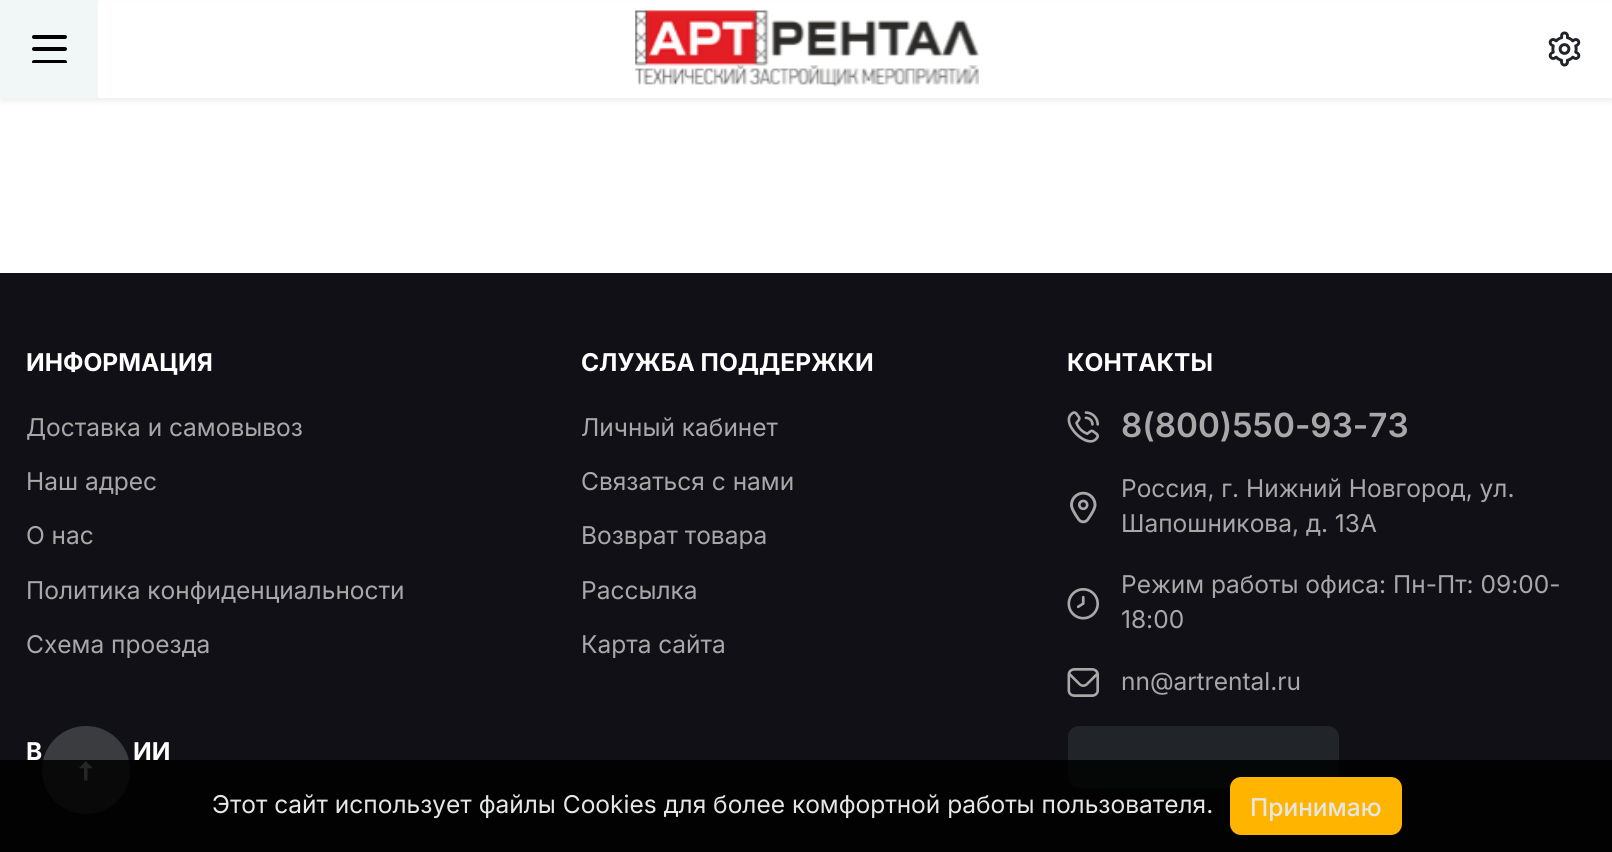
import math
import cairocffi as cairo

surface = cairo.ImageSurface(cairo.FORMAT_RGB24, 1612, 852)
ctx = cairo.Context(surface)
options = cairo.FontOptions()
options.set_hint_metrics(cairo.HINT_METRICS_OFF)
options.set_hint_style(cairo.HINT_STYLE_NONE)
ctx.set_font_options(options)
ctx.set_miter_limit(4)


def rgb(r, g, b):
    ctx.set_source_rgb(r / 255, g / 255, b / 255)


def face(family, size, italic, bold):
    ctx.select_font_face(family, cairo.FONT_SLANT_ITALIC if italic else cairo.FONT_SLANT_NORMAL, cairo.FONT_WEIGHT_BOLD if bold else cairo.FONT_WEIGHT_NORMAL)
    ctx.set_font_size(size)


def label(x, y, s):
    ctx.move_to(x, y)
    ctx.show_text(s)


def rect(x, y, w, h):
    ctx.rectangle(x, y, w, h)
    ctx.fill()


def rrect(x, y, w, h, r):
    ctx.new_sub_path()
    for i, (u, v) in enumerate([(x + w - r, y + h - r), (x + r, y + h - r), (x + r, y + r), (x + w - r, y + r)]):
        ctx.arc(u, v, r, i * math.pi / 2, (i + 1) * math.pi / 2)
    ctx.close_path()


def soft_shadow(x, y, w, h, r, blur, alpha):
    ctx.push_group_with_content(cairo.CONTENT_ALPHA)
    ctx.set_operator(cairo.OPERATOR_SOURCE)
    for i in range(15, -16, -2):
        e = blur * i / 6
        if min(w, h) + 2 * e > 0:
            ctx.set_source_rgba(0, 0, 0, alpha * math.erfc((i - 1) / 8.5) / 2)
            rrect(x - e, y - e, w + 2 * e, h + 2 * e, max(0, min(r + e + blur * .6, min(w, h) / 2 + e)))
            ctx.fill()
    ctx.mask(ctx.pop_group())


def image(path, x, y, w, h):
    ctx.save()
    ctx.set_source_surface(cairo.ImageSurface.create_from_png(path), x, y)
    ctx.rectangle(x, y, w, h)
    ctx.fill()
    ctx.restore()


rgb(255, 255, 255)
ctx.paint()
rgb(0, 0, 0)
soft_shadow(0, 4, 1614, 98, 0, 2.5, 0.06)
rgb(255, 255, 255)
rect(98, 2, 1514, 96)
rgb(241, 246, 247)
rect(0, 0, 98, 98)
rgb(0, 0, 0)
rrect(32, 35, 35, 4, 2)
ctx.fill()
rrect(32, 47, 35, 4, 2)
ctx.fill()
ctx.save()
ctx.rectangle(32, 35, 35, 28)
ctx.clip()
rrect(32, 60, 35, 4, 2)
ctx.fill()
ctx.restore()
image('image0.png', 635, 10, 344, 77)
image('image1.png', 1548, 31, 33, 36)
rgb(16, 16, 22)
rect(0, 273, 1612, 579)
face('Inter', 24.5, 0, 1)
rgb(255, 255, 255)
label(26, 371, 'ИНФОРМАЦИЯ')
face('Inter', 24.5, 0, 0)
rgb(168, 168, 168)
label(26, 436, 'Доставка и самовывоз')
label(26, 490, 'Наш адрес')
label(26, 544, 'О нас')
label(26, 599, 'Политика конфиденциальности')
label(26, 653, 'Схема проезда')
face('Inter', 24.5, 0, 1)
rgb(255, 255, 255)
label(581, 371, 'СЛУЖБА ПОДДЕРЖКИ')
face('Inter', 24.5, 0, 0)
rgb(168, 168, 168)
label(581, 436, 'Личный кабинет')
label(581, 490, 'Связаться с нами')
label(581, 544, 'Возврат товара')
label(581, 599, 'Рассылка')
label(581, 653, 'Карта сайта')
face('Inter', 24.5, 0, 1)
rgb(255, 255, 255)
label(26, 760, 'В')
label(133, 760, 'ИИ')
label(1067, 371, 'КОНТАКТЫ')
image('image2.png', 1067, 411, 32, 32)
face('Inter SemiBold', 33.25, 0, 0)
rgb(168, 168, 168)
label(1121, 437, '8(800)550-93-73')
image('image3.png', 1070, 491, 27, 33)
face('Inter', 24.5, 0, 0)
label(1121, 497, 'Россия, г. Нижний Новгород, ул.')
label(1121, 532, 'Шапошникова, д. 13А')
image('image4.png', 1067, 588, 32, 32)
label(1121, 593, 'Режим работы офиса: Пн-Пт: 09:00-')
label(1121, 628, '18:00')
image('image5.png', 1067, 668, 32, 29)
label(1121, 690, 'nn@artrental.ru')
rgb(33, 37, 41)
rrect(1069, 727, 269, 60, 10)
ctx.fill_preserve()
ctx.stroke()
rgb(58, 60, 64)
ctx.arc(86, 770, 44, 0, 2 * math.pi)
ctx.fill()
image('image6.png', 79, 761, 14, 20)
ctx.set_source_rgba(0, 0, 0, 0.85)
rect(0, 760, 1612, 92)
rgb(229, 230, 230)
label(212, 813, 'Этот сайт использует файлы Cookies для более комфортной работы пользователя.')
rgb(255, 180, 0)
rrect(1231, 778, 170, 56, 10)
ctx.fill_preserve()
ctx.stroke()
face('Inter Medium', 24.5, 0, 0)
rgb(229, 230, 230)
label(1250, 816, 'Принимаю')
surface.write_to_png('render.png')
